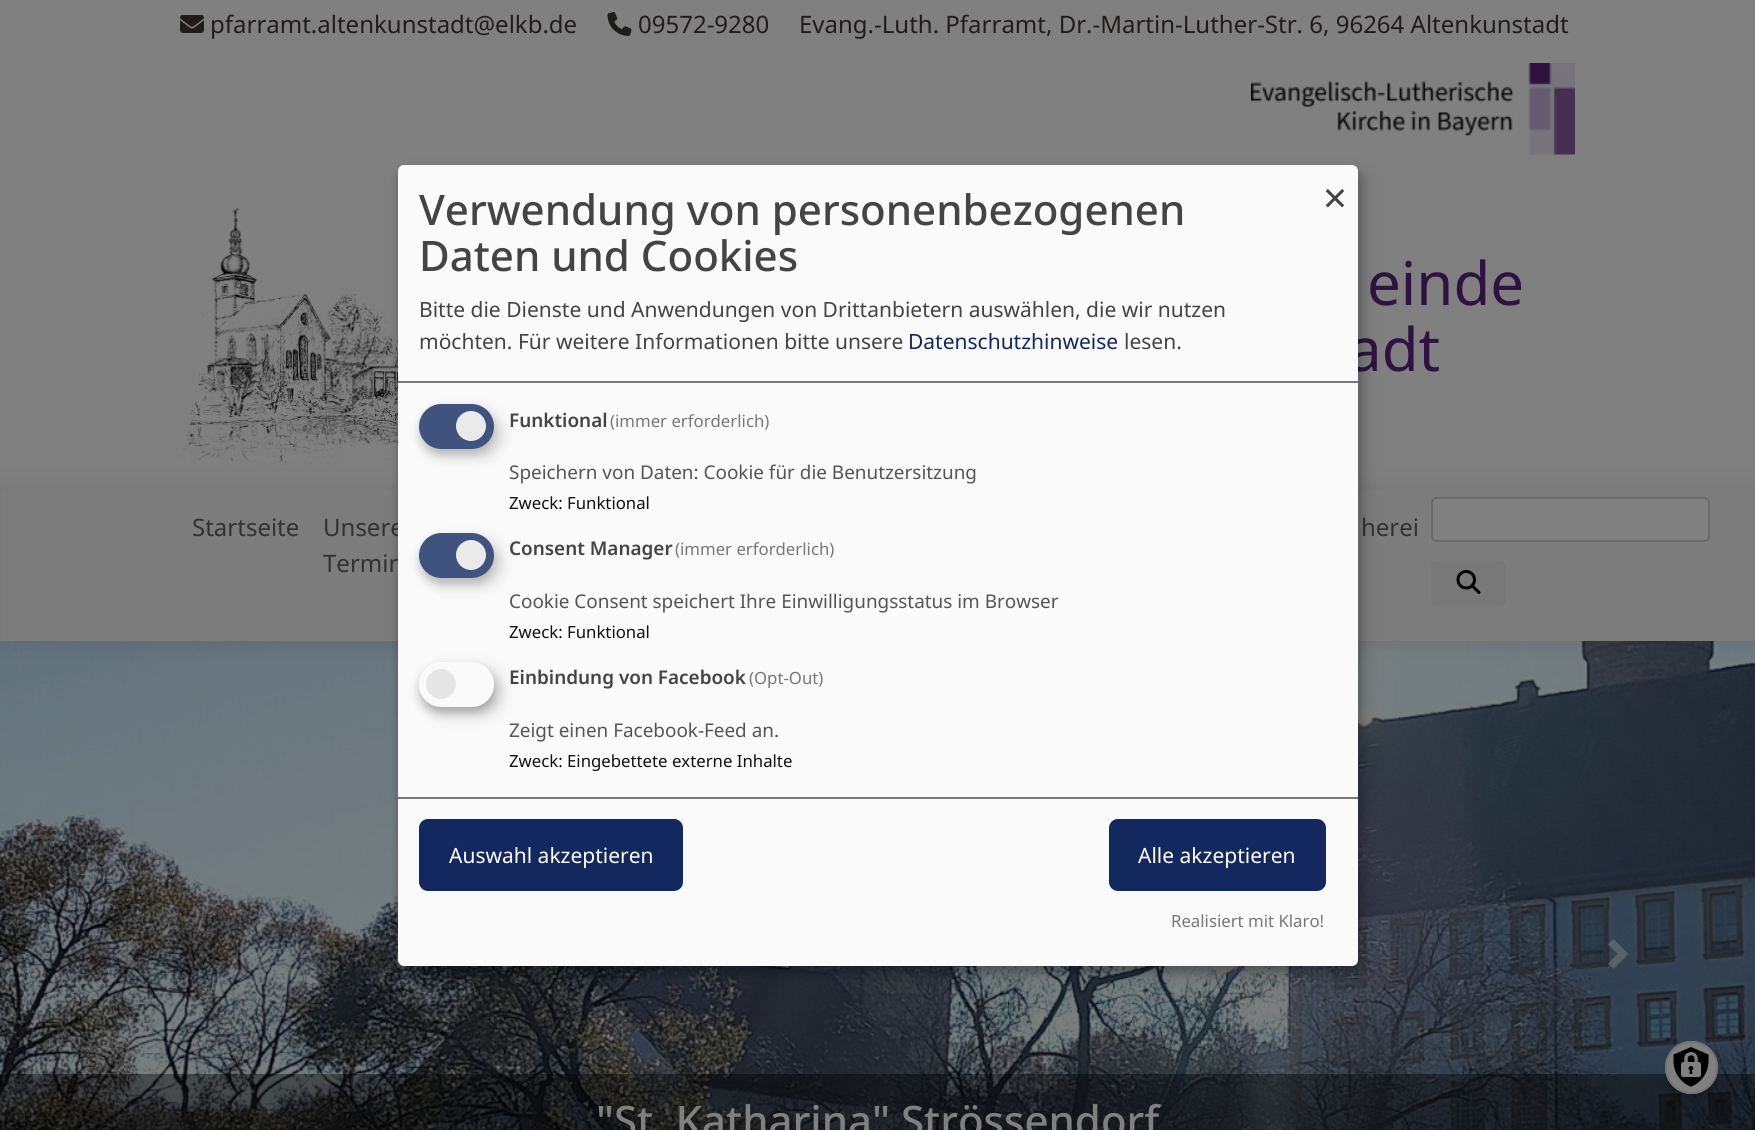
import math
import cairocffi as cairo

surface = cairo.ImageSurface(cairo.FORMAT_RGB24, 1755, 1130)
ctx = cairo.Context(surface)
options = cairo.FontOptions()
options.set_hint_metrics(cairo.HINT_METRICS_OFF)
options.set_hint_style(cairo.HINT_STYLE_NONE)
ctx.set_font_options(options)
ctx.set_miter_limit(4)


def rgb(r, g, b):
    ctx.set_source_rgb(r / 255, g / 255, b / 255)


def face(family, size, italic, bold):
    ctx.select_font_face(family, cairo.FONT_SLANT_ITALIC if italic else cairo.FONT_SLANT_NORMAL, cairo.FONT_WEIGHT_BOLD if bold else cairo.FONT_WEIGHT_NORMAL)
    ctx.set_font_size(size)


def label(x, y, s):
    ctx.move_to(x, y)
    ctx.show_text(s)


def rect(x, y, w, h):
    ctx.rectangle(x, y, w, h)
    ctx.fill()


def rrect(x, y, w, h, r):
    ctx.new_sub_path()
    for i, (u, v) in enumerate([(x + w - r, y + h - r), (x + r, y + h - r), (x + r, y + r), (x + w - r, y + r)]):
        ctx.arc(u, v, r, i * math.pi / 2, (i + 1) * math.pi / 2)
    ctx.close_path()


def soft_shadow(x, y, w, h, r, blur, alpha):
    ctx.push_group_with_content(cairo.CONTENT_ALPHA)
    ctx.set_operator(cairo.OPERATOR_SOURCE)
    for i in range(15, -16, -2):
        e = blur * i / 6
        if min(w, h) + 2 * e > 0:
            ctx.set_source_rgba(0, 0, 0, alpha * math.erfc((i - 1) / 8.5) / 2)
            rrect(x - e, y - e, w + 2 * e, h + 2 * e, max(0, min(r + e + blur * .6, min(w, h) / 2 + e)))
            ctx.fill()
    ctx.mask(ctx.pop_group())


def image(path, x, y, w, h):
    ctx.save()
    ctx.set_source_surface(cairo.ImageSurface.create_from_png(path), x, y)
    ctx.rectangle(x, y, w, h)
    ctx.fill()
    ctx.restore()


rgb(128, 128, 128)
ctx.paint()
image('image0.png', 180, 15, 24, 18)
face('Noto Sans', 24, 0, 0)
rgb(33, 28, 28)
label(210, 33, 'pfarramt.altenkunstadt@elkb.de')
image('image1.png', 607, 12, 25, 24)
label(638, 33, '09572-9280')
label(799, 33, 'Evang.-Luth. Pfarramt, Dr.-Martin-Luther-Str. 6, 96264 Altenkunstadt')
image('image2.png', 1251, 63, 324, 92)
image('image3.png', 181, 174, 217, 294)
face('Noto Sans', 60, 0, 0)
rgb(46, 18, 66)
label(1367, 305, 'einde')
label(1348, 371, 'adt')
image('image5.png', 0, 641, 1755, 489)
rgb(0, 0, 0)
soft_shadow(0, 488, 1755, 156, 0, 11, 0.09)
rgb(124, 124, 124)
rect(2, 490, 1751, 151)
face('Noto Sans', 24, 0, 0)
rgb(50, 50, 50)
label(192, 536, 'Startseite')
label(323, 536, 'Unsere')
label(323, 572, 'Termin')
label(1361, 536, 'herei')
rgb(128, 128, 128)
rrect(1433, 498, 276, 42, 5)
ctx.fill()
rrect(1432, 498, 277, 43, 5)
ctx.set_source_rgba(0, 0, 0, 0.15)
ctx.stroke()
rgb(120, 120, 120)
rrect(1431, 561, 75, 45, 6)
ctx.fill()
image('image4.png', 1456, 570, 25, 24)
ctx.set_source_rgba(0.502, 0.502, 0.502, 0.5)
ctx.new_path()
ctx.move_to(132, 939)
ctx.line_to(117, 954)
ctx.line_to(132, 969)
ctx.line_to(137.5, 963.5)
ctx.line_to(128, 954)
ctx.line_to(137.5, 944.5)
ctx.close_path()
ctx.fill()
ctx.new_path()
ctx.move_to(1613.5, 939)
ctx.line_to(1608, 944.5)
ctx.line_to(1617.5, 954)
ctx.line_to(1608, 963.5)
ctx.line_to(1613.5, 969)
ctx.line_to(1628.5, 954)
ctx.close_path()
ctx.fill()
ctx.set_source_rgba(0, 0, 0, 0.4)
rect(0, 1074, 1755, 56)
face('Noto Sans Medium', 42, 0, 0)
rgb(128, 128, 128)
label(596, 1136, '"St. Katharina" Strössendorf')
rgb(0, 0, 0)
soft_shadow(405, 173, 960, 801, 6, 7.5, 0.19)
soft_shadow(398, 171, 960, 801, 6, 4.5, 0.2)
rgb(250, 250, 250)
rrect(398, 165, 960, 801, 6)
ctx.fill()
rgb(119, 119, 119)
rect(398, 381, 960, 2)
rgb(68, 68, 68)
label(419, 225, 'Verwendung von personenbezogenen')
label(419, 271, 'Daten und Cookies')
face('Noto Sans', 21, 0, 0)
label(419, 317, 'Bitte die Dienste und Anwendungen von Drittanbietern auswählen, die wir nutzen')
label(419, 349, 'möchten. Für weitere Informationen bitte unsere')
rgb(18, 40, 95)
label(908, 349, 'Datenschutzhinweise')
rgb(68, 68, 68)
label(1124, 349, 'lesen.')
face('Noto Sans', 42, 0, 0)
label(1323, 213, '×')
rgb(0, 0, 0)
soft_shadow(426, 411, 75, 45, 22.5, 7.5, 0.15)
rgb(50, 50, 50)
soft_shadow(419, 410, 75, 45, 22.5, 4.5, 0.2)
rgb(64, 82, 126)
rrect(419, 404, 75, 45, 22.5)
ctx.fill()
rgb(234, 234, 234)
ctx.arc(471, 426, 15, 0, 2 * math.pi)
ctx.fill()
face('Noto Sans SemiBold', 18.9, 0, 0)
rgb(68, 68, 68)
label(509, 427, 'Funktional')
face('Noto Sans', 16.75, 0, 0)
rgb(119, 119, 119)
label(610, 427, '(immer erforderlich)')
face('Noto Sans', 18.9, 0, 0)
rgb(85, 85, 85)
label(509, 479, 'Speichern von Daten: Cookie für die Benutzersitzung')
face('Noto Sans', 16.75, 0, 0)
rgb(17, 17, 17)
label(509, 509, 'Zweck: Funktional')
rgb(0, 0, 0)
soft_shadow(426, 540, 75, 45, 22.5, 7.5, 0.15)
rgb(50, 50, 50)
soft_shadow(419, 539, 75, 45, 22.5, 4.5, 0.2)
rgb(64, 82, 126)
rrect(419, 533, 75, 45, 22.5)
ctx.fill()
rgb(234, 234, 234)
ctx.arc(471, 555, 15, 0, 2 * math.pi)
ctx.fill()
face('Noto Sans SemiBold', 18.9, 0, 0)
rgb(68, 68, 68)
label(509, 555, 'Consent Manager')
face('Noto Sans', 16.75, 0, 0)
rgb(119, 119, 119)
label(675, 555, '(immer erforderlich)')
face('Noto Sans', 18.9, 0, 0)
rgb(85, 85, 85)
label(509, 608, 'Cookie Consent speichert Ihre Einwilligungsstatus im Browser')
face('Noto Sans', 16.75, 0, 0)
rgb(17, 17, 17)
label(509, 638, 'Zweck: Funktional')
ctx.save()
ctx.set_fill_rule(cairo.FILL_RULE_EVEN_ODD)
ctx.new_path()
ctx.move_to(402, 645)
ctx.line_to(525, 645)
ctx.line_to(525, 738)
ctx.line_to(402, 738)
ctx.close_path()
ctx.move_to(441.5, 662)
ctx.line_to(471.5, 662)
ctx.curve_to(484, 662, 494, 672, 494, 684.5)
ctx.curve_to(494, 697, 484, 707, 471.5, 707)
ctx.line_to(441.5, 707)
ctx.curve_to(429, 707, 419, 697, 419, 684.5)
ctx.curve_to(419, 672, 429, 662, 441.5, 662)
ctx.close_path()
ctx.clip()
rgb(0, 0, 0)
soft_shadow(426, 669, 75, 45, 22.5, 7.5, 0.19)
ctx.restore()
ctx.save()
ctx.set_fill_rule(cairo.FILL_RULE_EVEN_ODD)
ctx.new_path()
ctx.move_to(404, 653)
ctx.line_to(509, 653)
ctx.line_to(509, 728)
ctx.line_to(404, 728)
ctx.close_path()
ctx.move_to(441.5, 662)
ctx.line_to(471.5, 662)
ctx.curve_to(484, 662, 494, 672, 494, 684.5)
ctx.curve_to(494, 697, 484, 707, 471.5, 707)
ctx.line_to(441.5, 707)
ctx.curve_to(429, 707, 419, 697, 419, 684.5)
ctx.curve_to(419, 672, 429, 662, 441.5, 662)
ctx.close_path()
ctx.clip()
rgb(0, 0, 0)
soft_shadow(419, 668, 75, 45, 22.5, 4.5, 0.2)
ctx.restore()
rgb(230, 230, 230)
ctx.arc(441, 684, 15, 0, 2 * math.pi)
ctx.fill()
face('Noto Sans SemiBold', 18.9, 0, 0)
rgb(68, 68, 68)
label(509, 684, 'Einbindung von Facebook')
face('Noto Sans', 16.75, 0, 0)
rgb(119, 119, 119)
label(749, 684, '(Opt-Out)')
face('Noto Sans', 18.9, 0, 0)
rgb(85, 85, 85)
label(509, 737, 'Zeigt einen Facebook-Feed an.')
face('Noto Sans', 16.75, 0, 0)
rgb(17, 17, 17)
label(509, 767, 'Zweck: Eingebettete externe Inhalte')
rgb(119, 119, 119)
rect(398, 797, 960, 2)
rgb(18, 40, 95)
rrect(421.5, 821.5, 259, 67, 6.5)
ctx.fill_preserve()
ctx.set_line_width(5)
ctx.stroke()
face('Noto Sans', 21, 0, 0)
rgb(255, 255, 255)
label(449, 863, 'Auswahl akzeptieren')
rgb(18, 40, 95)
rrect(1111.5, 821.5, 212, 67, 6.5)
ctx.fill_preserve()
ctx.stroke()
rgb(255, 255, 255)
label(1138, 863, 'Alle akzeptieren')
face('Noto Sans', 16.75, 0, 0)
rgb(119, 119, 119)
label(1171, 927, 'Realisiert mit Klaro!')
rgb(0, 0, 0)
soft_shadow(1665, 1049, 53, 52, 26, 4, 0.2)
rgb(128, 128, 128)
ctx.arc(1691.5, 1067.5, 26.5, 0, 2 * math.pi)
ctx.fill()
image('image6.png', 1673, 1047, 36, 40)
ctx.arc(1691.5, 1067.5, 25.5, 0, 2 * math.pi)
rgb(117, 117, 117)
ctx.set_line_width(2)
ctx.stroke()
surface.write_to_png('render.png')
